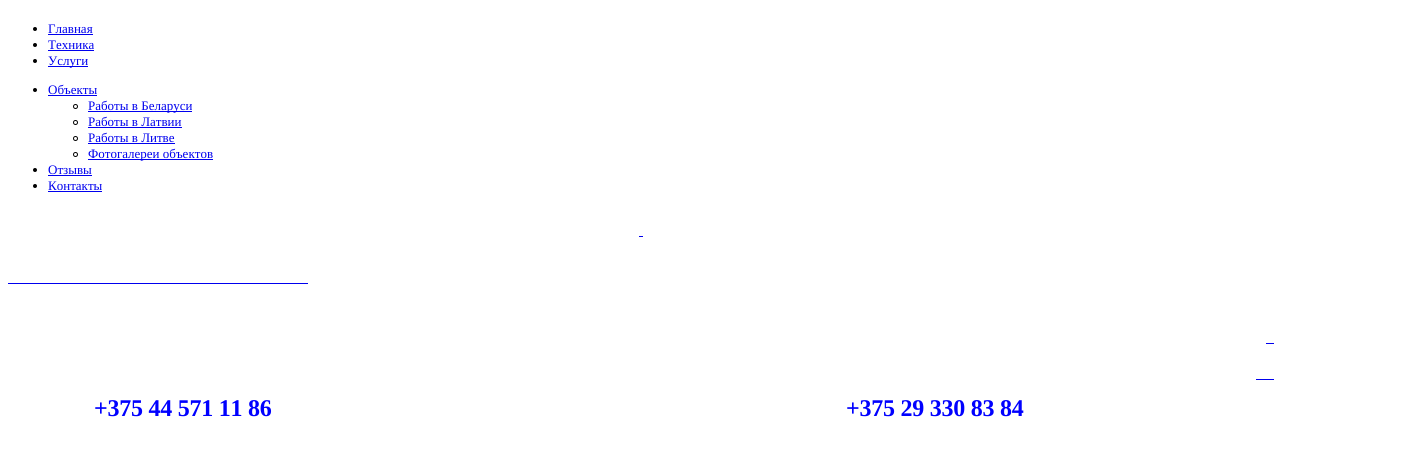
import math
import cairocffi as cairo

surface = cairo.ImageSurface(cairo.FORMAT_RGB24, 1419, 475)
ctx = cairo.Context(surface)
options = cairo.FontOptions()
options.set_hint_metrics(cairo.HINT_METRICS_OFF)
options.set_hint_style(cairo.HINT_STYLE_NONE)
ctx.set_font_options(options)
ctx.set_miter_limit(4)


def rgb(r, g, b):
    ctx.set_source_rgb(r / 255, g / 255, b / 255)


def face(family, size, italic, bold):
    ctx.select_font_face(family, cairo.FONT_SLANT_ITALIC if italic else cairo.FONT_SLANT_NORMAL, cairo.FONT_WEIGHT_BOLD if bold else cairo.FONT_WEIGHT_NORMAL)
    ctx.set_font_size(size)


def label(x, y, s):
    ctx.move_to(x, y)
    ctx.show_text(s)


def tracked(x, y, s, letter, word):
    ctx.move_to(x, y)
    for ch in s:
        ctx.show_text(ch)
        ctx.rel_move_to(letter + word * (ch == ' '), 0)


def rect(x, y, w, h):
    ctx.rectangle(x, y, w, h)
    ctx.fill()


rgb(255, 255, 255)
ctx.paint()
rgb(0, 0, 0)
ctx.arc(35, 29, 2, 0, 2 * math.pi)
ctx.fill()
face('Liberation Serif', 13, 0, 0)
rgb(0, 0, 238)
label(48, 33, 'Главная')
rect(48, 34, 45, 1)
rgb(0, 0, 0)
ctx.new_path()
ctx.arc(35, 45, 2, 0, 2 * math.pi)
ctx.fill()
rgb(0, 0, 238)
label(48, 49, 'Техника')
rect(48, 50, 46, 1)
rgb(0, 0, 0)
ctx.new_path()
ctx.arc(35, 61, 2, 0, 2 * math.pi)
ctx.fill()
rgb(0, 0, 238)
rect(48, 66, 40, 1)
label(48, 65, 'Услуги')
rgb(0, 0, 0)
ctx.new_path()
ctx.arc(35, 90, 2, 0, 2 * math.pi)
ctx.fill()
rgb(0, 0, 238)
label(48, 94, 'Объекты')
rect(48, 95, 49, 1)
ctx.new_path()
ctx.arc(75.5, 106.5, 2, 0, 2 * math.pi)
rgb(0, 0, 0)
ctx.set_line_width(1)
ctx.stroke()
rgb(0, 0, 238)
rect(88, 111, 104, 1)
label(88, 110, 'Работы в Беларуси')
ctx.new_path()
ctx.arc(75.5, 122.5, 2, 0, 2 * math.pi)
rgb(0, 0, 0)
ctx.stroke()
rgb(0, 0, 238)
label(88, 126, 'Работы в Латвии')
rect(88, 127, 94, 1)
ctx.new_path()
ctx.arc(75.5, 138.5, 2, 0, 2 * math.pi)
rgb(0, 0, 0)
ctx.stroke()
rgb(0, 0, 238)
label(88, 142, 'Работы в Литве')
rect(88, 143, 87, 1)
ctx.new_path()
ctx.arc(75.5, 154.5, 2, 0, 2 * math.pi)
rgb(0, 0, 0)
ctx.stroke()
rgb(0, 0, 238)
rect(88, 159, 125, 1)
label(88, 158, 'Фотогалереи объектов')
rgb(0, 0, 0)
ctx.new_path()
ctx.arc(35, 170, 2, 0, 2 * math.pi)
ctx.fill()
rgb(0, 0, 238)
label(48, 174, 'Отзывы')
rect(48, 175, 44, 1)
rgb(0, 0, 0)
ctx.new_path()
ctx.arc(35, 186, 2, 0, 2 * math.pi)
ctx.fill()
rgb(0, 0, 238)
label(48, 190, 'Контакты')
rect(48, 191, 54, 1)
rect(639, 236, 4, 1)
rect(8, 283, 300, 1)
rect(1266, 343, 8, 1)
rect(1256, 379, 18, 1)
face('Liberation Serif', 24, 0, 1)
rgb(0, 0, 255)
tracked(94, 416, '+375 44 571 11 86', -0.25, 0)
tracked(846, 416, '+375 29 330 83 84', -0.25, 0)
surface.write_to_png('render.png')
